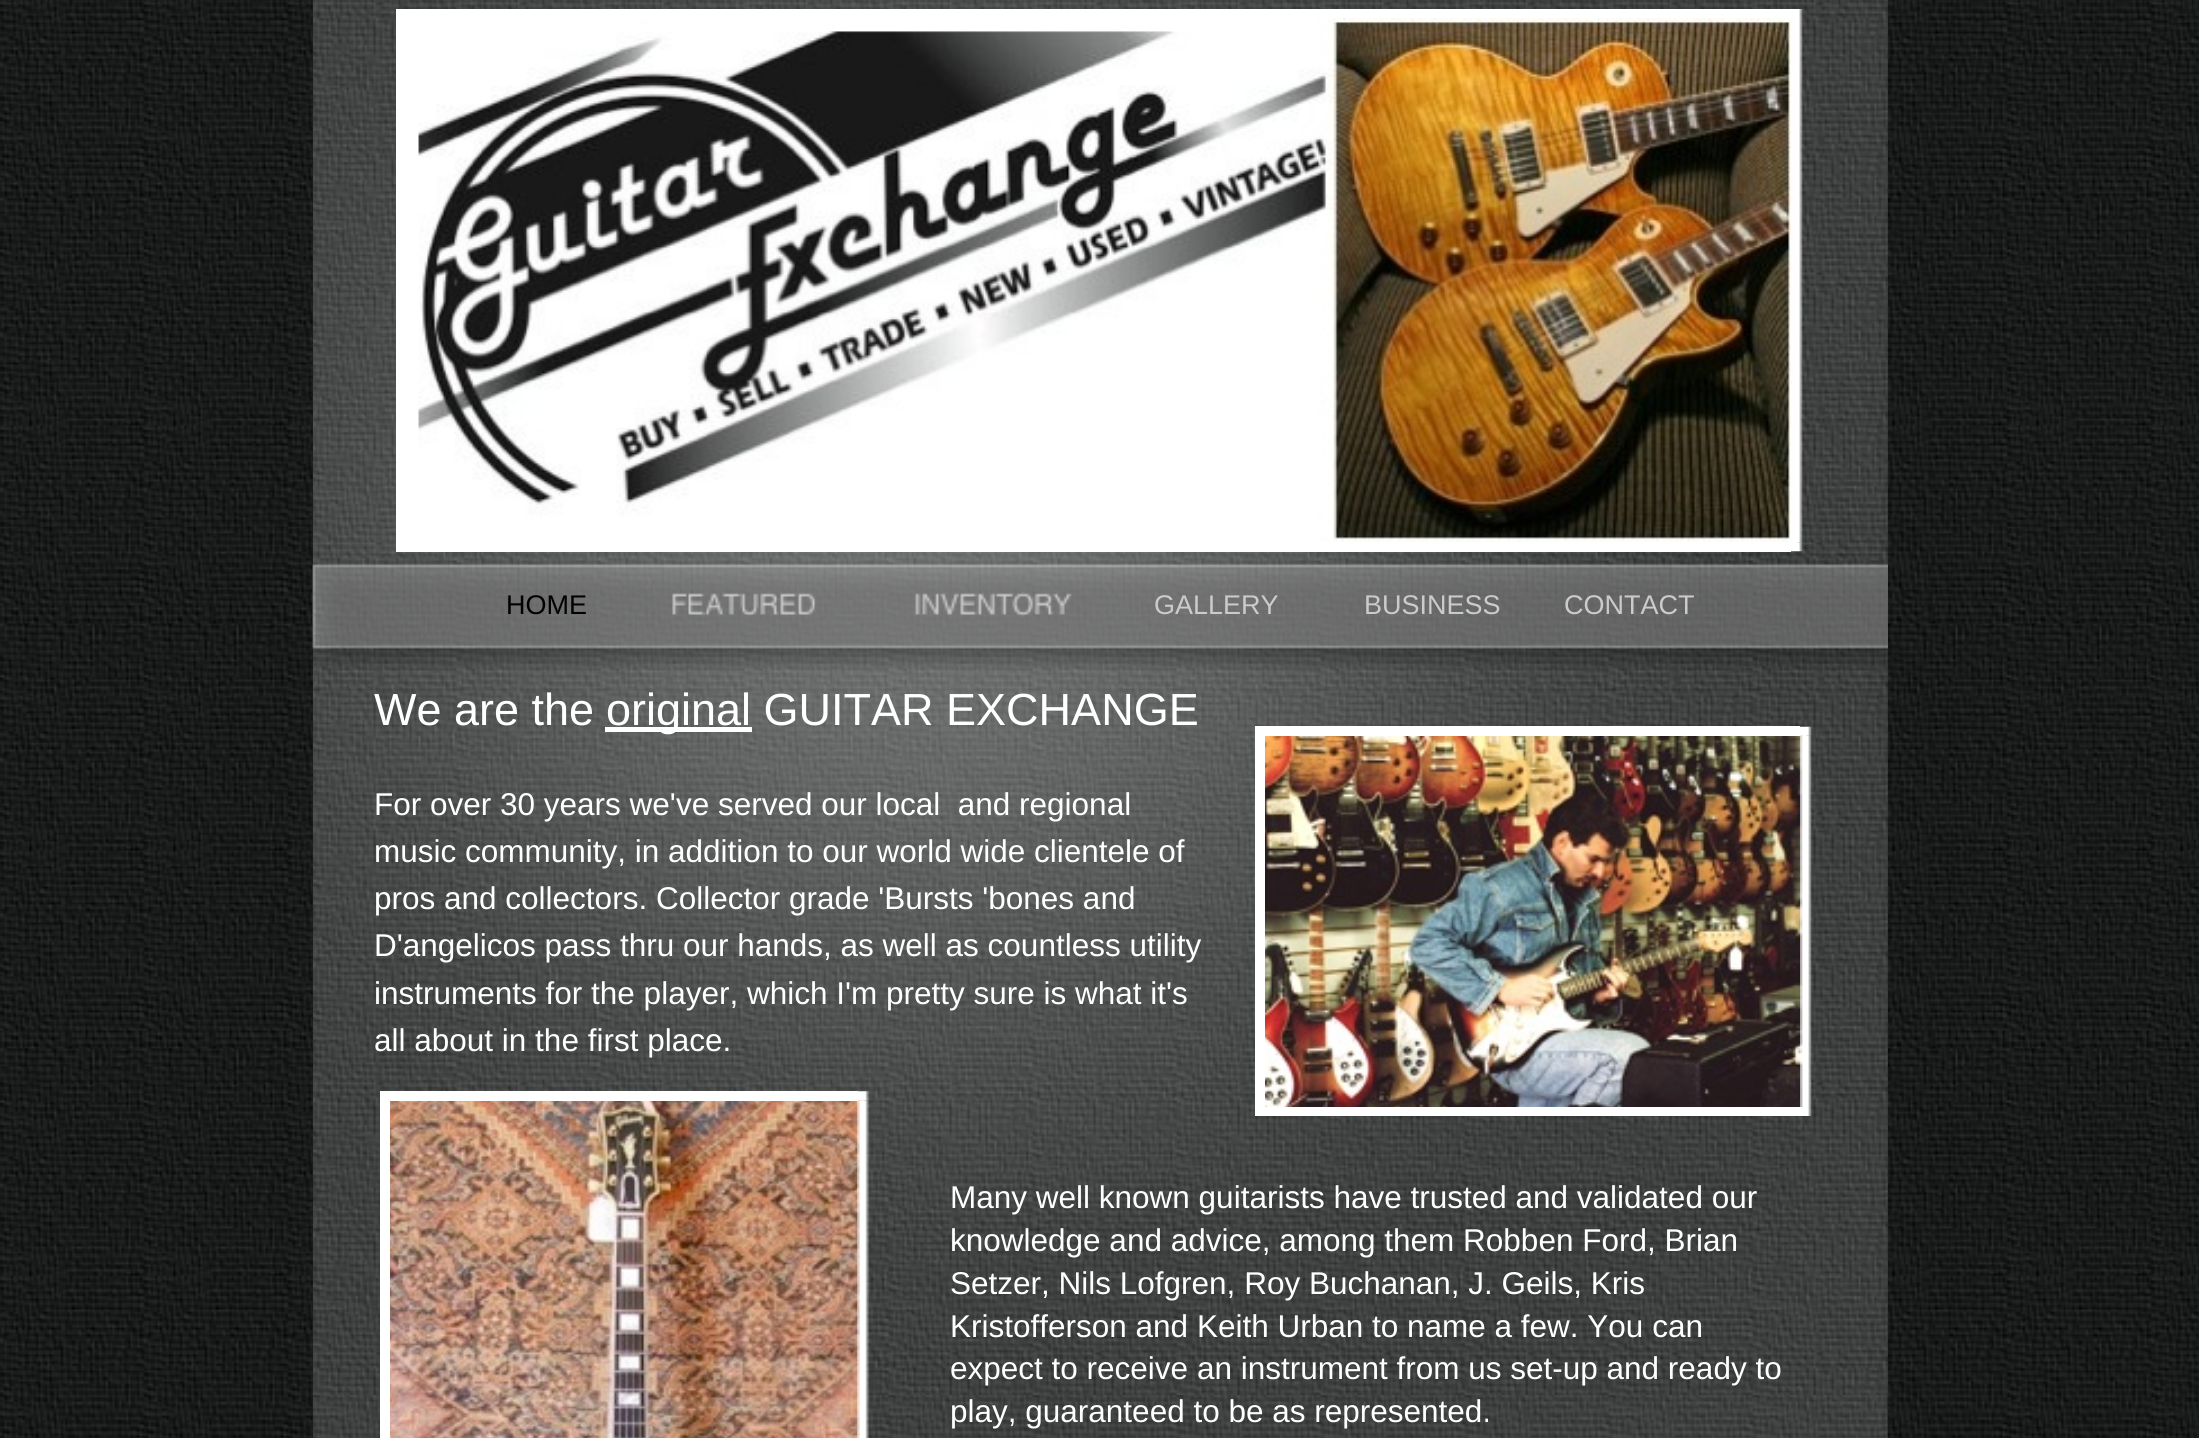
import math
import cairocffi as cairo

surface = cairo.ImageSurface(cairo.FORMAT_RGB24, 2199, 1438)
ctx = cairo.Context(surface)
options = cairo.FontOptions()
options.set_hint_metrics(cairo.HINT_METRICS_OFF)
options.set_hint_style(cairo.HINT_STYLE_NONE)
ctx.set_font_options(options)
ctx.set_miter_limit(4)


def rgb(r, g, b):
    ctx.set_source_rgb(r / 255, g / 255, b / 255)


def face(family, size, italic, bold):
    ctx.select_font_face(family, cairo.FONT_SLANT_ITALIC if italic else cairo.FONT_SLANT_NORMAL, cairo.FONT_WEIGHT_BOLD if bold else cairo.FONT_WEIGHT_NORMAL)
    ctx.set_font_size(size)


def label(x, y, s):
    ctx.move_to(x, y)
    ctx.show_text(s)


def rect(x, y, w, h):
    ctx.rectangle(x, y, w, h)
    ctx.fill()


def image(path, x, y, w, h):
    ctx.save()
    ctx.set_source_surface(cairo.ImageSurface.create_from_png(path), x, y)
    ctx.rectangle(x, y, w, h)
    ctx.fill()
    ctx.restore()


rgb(255, 255, 255)
ctx.paint()
image('image0.png', 0, 0, 2199, 1438)
image('image1.png', 312, 0, 1576, 1438)
image('image2.png', 313, 0, 1575, 1395)
rgb(255, 255, 255)
rect(396, 9, 1395, 9)
image('image3.png', 1791, 9, 12, 9)
rect(396, 18, 5, 525)
image('image4.png', 401, 18, 1397, 525)
image('image5.png', 1791, 18, 12, 525)
rect(396, 543, 9, 9)
rect(405, 542, 1386, 10)
image('image6.png', 1791, 542, 12, 10)
image('image7.png', 312, 561, 1576, 109)
face('Liberation Sans', 27, 0, 0)
rgb(1, 1, 1)
label(506, 614, 'HOME')
image('image8.png', 672, 593, 144, 24)
image('image9.png', 915, 591, 157, 26)
rgb(203, 203, 203)
label(1154, 614, 'GALLERY')
label(1364, 614, 'BUSINESS')
label(1564, 614, 'CONTACT')
face('Liberation Sans', 45, 0, 0)
rgb(255, 255, 255)
label(374, 725, 'We are the')
rect(605, 727, 147, 5)
label(606, 725, 'original GUITAR EXCHANGE')
face('Liberation Sans', 31.5, 0, 0)
label(374, 815, 'For over 30 years we\'ve served our local  and regional')
label(374, 862, 'music community, in addition to our world wide clientele of')
label(374, 909, 'pros and collectors. Collector grade \'Bursts \'bones and')
label(374, 956, 'D\'angelicos pass thru our hands, as well as countless utility')
label(374, 1004, 'instruments for the player, which I\'m pretty sure is what it\'s')
label(374, 1051, 'all about in the first place.')
rect(1255, 726, 10, 381)
image('image11.png', 1265, 735, 542, 372)
rect(1265, 726, 535, 10)
image('image10.png', 1800, 726, 12, 10)
image('image12.png', 1800, 735, 12, 372)
rect(1255, 1107, 545, 9)
image('image13.png', 1800, 1107, 12, 9)
rect(380, 1091, 10, 347)
image('image15.png', 390, 1100, 474, 338)
rect(390, 1091, 468, 10)
image('image14.png', 858, 1091, 11, 10)
image('image16.png', 857, 1100, 12, 338)
label(950, 1208, 'Many well known guitarists have trusted and validated our')
label(950, 1251, 'knowledge and advice, among them Robben Ford, Brian')
label(950, 1294, 'Setzer, Nils Lofgren, Roy Buchanan, J. Geils, Kris')
label(950, 1337, 'Kristofferson and Keith Urban to name a few. You can')
label(950, 1379, 'expect to receive an instrument from us set-up and ready to')
label(950, 1422, 'play, guaranteed to be as represented.')
surface.write_to_png('render.png')
